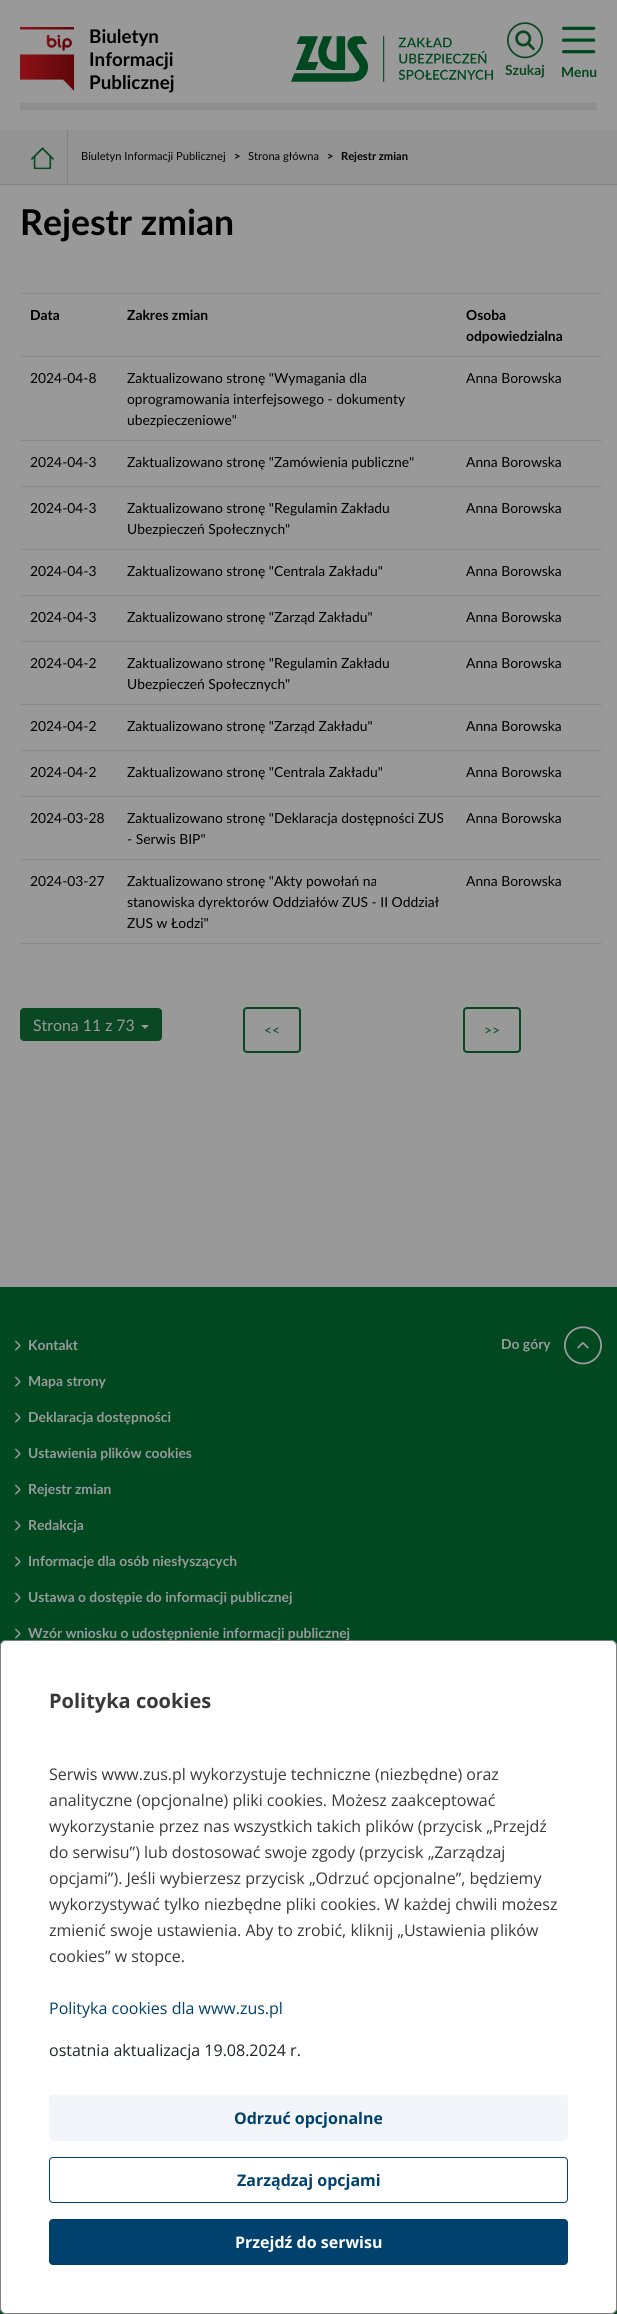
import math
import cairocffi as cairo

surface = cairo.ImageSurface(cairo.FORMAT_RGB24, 617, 2314)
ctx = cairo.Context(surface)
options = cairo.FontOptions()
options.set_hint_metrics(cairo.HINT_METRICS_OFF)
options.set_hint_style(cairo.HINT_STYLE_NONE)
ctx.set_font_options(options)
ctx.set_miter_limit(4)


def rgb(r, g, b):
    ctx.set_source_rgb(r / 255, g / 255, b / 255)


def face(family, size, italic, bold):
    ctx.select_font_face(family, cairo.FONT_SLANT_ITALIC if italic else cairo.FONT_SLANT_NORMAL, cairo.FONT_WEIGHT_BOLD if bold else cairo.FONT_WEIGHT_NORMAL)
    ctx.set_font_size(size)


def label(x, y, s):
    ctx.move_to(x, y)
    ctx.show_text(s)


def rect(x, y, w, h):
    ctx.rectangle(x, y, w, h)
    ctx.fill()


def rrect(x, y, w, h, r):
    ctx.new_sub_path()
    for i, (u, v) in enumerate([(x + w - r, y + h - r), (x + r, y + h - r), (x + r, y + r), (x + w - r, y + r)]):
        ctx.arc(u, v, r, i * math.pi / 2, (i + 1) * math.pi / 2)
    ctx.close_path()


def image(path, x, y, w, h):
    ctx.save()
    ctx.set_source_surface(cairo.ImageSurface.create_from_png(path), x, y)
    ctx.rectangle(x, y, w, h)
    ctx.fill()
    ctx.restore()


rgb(0, 72, 31)
ctx.paint()
rgb(153, 153, 153)
rect(0, 0, 617, 1287)
rgb(142, 142, 142)
rect(20, 103, 577, 7)
image('image0.png', 20, 27, 54, 64)
face('Lato', 19, 0, 1)
rgb(0, 0, 0)
label(89, 43, 'Biuletyn')
label(89, 66, 'Informacji')
label(89, 89, 'Publicznej')
image('image1.png', 291, 36, 202, 46)
image('image2.png', 507, 22, 36, 37)
face('Lato', 14, 0, 1)
rgb(10, 72, 35)
label(505, 75, 'Szukaj')
image('image3.png', 561, 26, 35, 28)
rgb(0, 72, 31)
label(561, 77, 'Menu')
rgb(147, 147, 147)
rect(0, 130, 617, 54)
rgb(131, 131, 131)
rect(0, 184, 617, 1)
rect(67, 130, 1, 54)
image('image4.png', 31, 147, 23, 23)
face('Lato', 11.25, 0, 0)
rgb(0, 0, 0)
label(81, 160, 'Biuletyn Informacji Publicznej')
face('Lato', 11.25, 0, 1)
label(234, 160, '>')
face('Lato', 11.25, 0, 0)
label(248, 160, 'Strona główna')
face('Lato', 11.25, 0, 1)
label(327, 160, '>')
label(341, 160, 'Rejestr zmian')
face('Lato', 36, 0, 1)
label(20, 235, 'Rejestr zmian')
rgb(139, 139, 139)
rect(20, 293, 582, 1)
rect(20, 356, 582, 1)
face('Lato', 14, 0, 1)
rgb(0, 0, 0)
label(30, 320, 'Data')
label(127, 320, 'Zakres zmian')
label(466, 320, 'Osoba')
label(466, 341, 'odpowiedzialna')
rgb(139, 139, 139)
rect(20, 440, 582, 1)
face('Lato', 14, 0, 0)
rgb(0, 0, 0)
label(30, 383, '2024-04-8')
label(127, 383, 'Zaktualizowano stronę "Wymagania dla')
label(127, 404, 'oprogramowania interfejsowego - dokumenty')
label(127, 425, 'ubezpieczeniowe"')
label(466, 383, 'Anna Borowska')
rgb(139, 139, 139)
rect(20, 486, 582, 1)
rgb(0, 0, 0)
label(30, 467, '2024-04-3')
label(127, 467, 'Zaktualizowano stronę "Zamówienia publiczne"')
label(466, 467, 'Anna Borowska')
rgb(139, 139, 139)
rect(20, 549, 582, 1)
rgb(0, 0, 0)
label(30, 513, '2024-04-3')
label(127, 513, 'Zaktualizowano stronę "Regulamin Zakładu')
label(127, 534, 'Ubezpieczeń Społecznych"')
label(466, 513, 'Anna Borowska')
rgb(139, 139, 139)
rect(20, 595, 582, 1)
rgb(0, 0, 0)
label(30, 576, '2024-04-3')
label(127, 576, 'Zaktualizowano stronę "Centrala Zakładu"')
label(466, 576, 'Anna Borowska')
rgb(139, 139, 139)
rect(20, 641, 582, 1)
rgb(0, 0, 0)
label(30, 622, '2024-04-3')
label(127, 622, 'Zaktualizowano stronę "Zarząd Zakładu"')
label(466, 622, 'Anna Borowska')
rgb(139, 139, 139)
rect(20, 704, 582, 1)
rgb(0, 0, 0)
label(30, 668, '2024-04-2')
label(127, 668, 'Zaktualizowano stronę "Regulamin Zakładu')
label(127, 689, 'Ubezpieczeń Społecznych"')
label(466, 668, 'Anna Borowska')
rgb(139, 139, 139)
rect(20, 750, 582, 1)
rgb(0, 0, 0)
label(30, 731, '2024-04-2')
label(127, 731, 'Zaktualizowano stronę "Zarząd Zakładu"')
label(466, 731, 'Anna Borowska')
rgb(139, 139, 139)
rect(20, 796, 582, 1)
rgb(0, 0, 0)
label(30, 777, '2024-04-2')
label(127, 777, 'Zaktualizowano stronę "Centrala Zakładu"')
label(466, 777, 'Anna Borowska')
rgb(139, 139, 139)
rect(20, 859, 582, 1)
rgb(0, 0, 0)
label(30, 823, '2024-03-28')
label(127, 823, 'Zaktualizowano stronę "Deklaracja dostępności ZUS')
label(127, 844, '- Serwis BIP"')
label(466, 823, 'Anna Borowska')
rgb(139, 139, 139)
rect(20, 943, 582, 1)
rgb(0, 0, 0)
label(30, 886, '2024-03-27')
label(127, 886, 'Zaktualizowano stronę "Akty powołań na')
label(127, 907, 'stanowiska dyrektorów Oddziałów ZUS - II Oddział')
label(127, 928, 'ZUS w Łodzi"')
label(466, 886, 'Anna Borowska')
rgb(10, 72, 35)
rrect(20.5, 1008.5, 141, 32, 3.5)
ctx.fill_preserve()
ctx.set_line_width(1)
ctx.stroke()
face('Lato', 16, 0, 0)
rgb(153, 153, 153)
label(33, 1031, 'Strona 11 z 73')
ctx.new_path()
ctx.move_to(141, 1025)
ctx.line_to(149, 1025)
ctx.line_to(145, 1029)
ctx.close_path()
ctx.fill()
rrect(244, 1008, 56, 44, 3)
rgb(10, 72, 35)
ctx.set_line_width(2)
ctx.stroke()
face('Lato', 14, 0, 0)
label(264, 1035, '<<')
rrect(464, 1008, 56, 44, 3)
ctx.stroke()
label(484, 1035, '>>')
image('image5.png', 15, 1340, 6, 11)
face('Lato', 14, 0, 1)
rgb(153, 153, 153)
label(28, 1350, 'Kontakt')
image('image5.png', 15, 1376, 6, 11)
label(28, 1386, 'Mapa strony')
image('image5.png', 15, 1412, 6, 11)
label(28, 1422, 'Deklaracja dostępności')
image('image5.png', 15, 1448, 6, 11)
label(28, 1458, 'Ustawienia plików cookies')
image('image5.png', 15, 1484, 6, 11)
label(28, 1494, 'Rejestr zmian')
image('image5.png', 15, 1520, 6, 11)
label(28, 1530, 'Redakcja')
image('image5.png', 15, 1556, 6, 11)
label(28, 1566, 'Informacje dla osób niesłyszących')
image('image5.png', 15, 1592, 6, 11)
label(28, 1602, 'Ustawa o dostępie do informacji publicznej')
image('image5.png', 15, 1628, 6, 11)
label(28, 1638, 'Wzór wniosku o udostępnienie informacji publicznej')
label(501, 1349, 'Do góry')
image('image6.png', 564, 1326, 38, 39)
rgb(255, 255, 255)
rrect(0, 1640, 617, 674, 6)
ctx.fill()
rrect(0.5, 1640.5, 616, 673, 5.5)
ctx.set_source_rgba(0, 0, 0, 0.5)
ctx.set_line_width(1)
ctx.stroke()
face('Open Sans', 20, 0, 1)
rgb(57, 57, 57)
label(49, 1708, 'Polityka cookies')
face('Open Sans', 16, 0, 0)
label(49, 1780, 'Serwis www.zus.pl wykorzystuje techniczne (niezbędne) oraz')
label(49, 1806, 'analityczne (opcjonalne) pliki cookies. Możesz zaakceptować')
label(49, 1832, 'wykorzystanie przez nas wszystkich takich plików (przycisk „Przejdź')
label(49, 1858, 'do serwisu”) lub dostosować swoje zgody (przycisk „Zarządzaj')
label(49, 1884, 'opcjami”). Jeśli wybierzesz przycisk „Odrzuć opcjonalne”, będziemy')
label(49, 1910, 'wykorzystywać tylko niezbędne pliki cookies. W każdej chwili możesz')
label(49, 1936, 'zmienić swoje ustawienia. Aby to zrobić, kliknij „Ustawienia plików')
label(49, 1962, 'cookies” w stopce.')
rgb(0, 65, 110)
label(49, 2014, 'Polityka cookies dla www.zus.pl')
rgb(33, 37, 41)
label(49, 2056, 'ostatnia aktualizacja 19.08.2024 r.')
rgb(242, 246, 250)
rrect(49, 2095, 519, 46, 4)
ctx.fill()
face('Open Sans', 16, 0, 1)
rgb(0, 65, 110)
label(234, 2124, 'Odrzuć opcjonalne')
rrect(49.5, 2157.5, 518, 45, 3.5)
ctx.stroke()
label(237, 2186, 'Zarządzaj opcjami')
rrect(49.5, 2219.5, 518, 45, 3.5)
ctx.fill_preserve()
ctx.stroke()
rgb(255, 255, 255)
label(235, 2248, 'Przejdź do serwisu')
surface.write_to_png('render.png')
